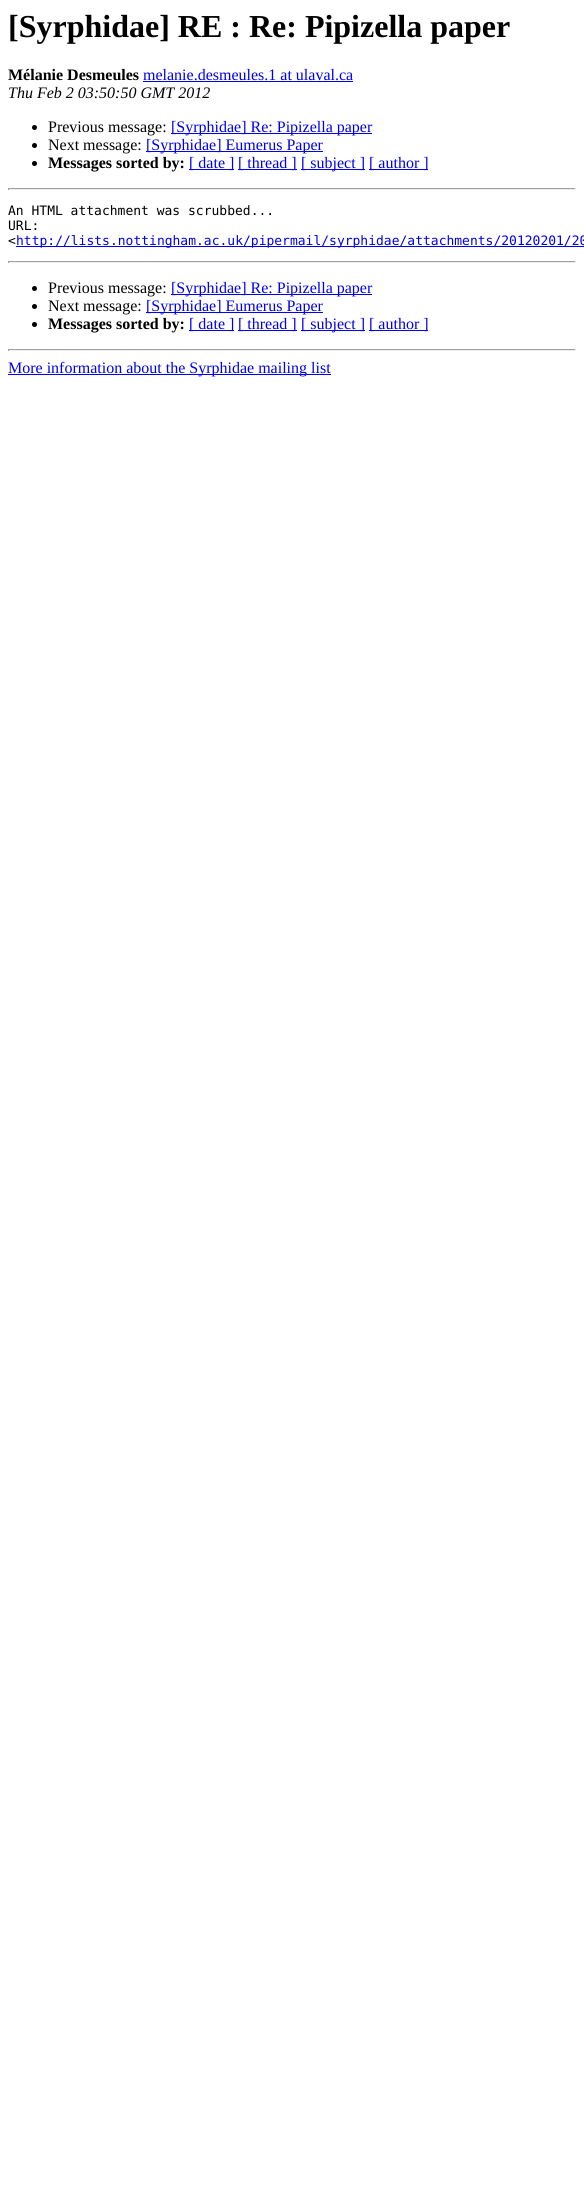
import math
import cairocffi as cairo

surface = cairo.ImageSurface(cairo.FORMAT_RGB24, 584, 2196)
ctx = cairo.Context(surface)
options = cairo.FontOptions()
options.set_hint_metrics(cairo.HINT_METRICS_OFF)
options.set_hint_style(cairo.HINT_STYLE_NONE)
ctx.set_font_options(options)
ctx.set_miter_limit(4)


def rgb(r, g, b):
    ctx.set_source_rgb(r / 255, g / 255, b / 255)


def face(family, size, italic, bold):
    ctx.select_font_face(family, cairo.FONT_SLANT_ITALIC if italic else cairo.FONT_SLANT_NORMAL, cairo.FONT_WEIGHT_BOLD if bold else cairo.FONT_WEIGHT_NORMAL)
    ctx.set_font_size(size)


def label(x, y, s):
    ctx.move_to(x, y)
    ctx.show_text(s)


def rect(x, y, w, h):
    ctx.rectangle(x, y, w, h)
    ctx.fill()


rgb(255, 255, 255)
ctx.paint()
face('Liberation Serif', 32, 0, 1)
rgb(0, 0, 0)
label(8, 37, '[Syrphidae] RE : Re: Pipizella paper')
face('Liberation Serif', 16, 0, 1)
label(8, 80, 'Mélanie Desmeules')
face('Liberation Serif', 16, 0, 0)
rgb(0, 0, 238)
label(143, 80, 'melanie.desmeules.1 at ulaval.ca')
rect(143, 81, 210, 1)
face('Liberation Serif', 16, 1, 0)
rgb(0, 0, 0)
label(8, 98, 'Thu Feb 2 03:50:50 GMT 2012')
ctx.new_path()
ctx.arc(34.5, 127.5, 2.5, 0, 2 * math.pi)
ctx.fill()
face('Liberation Serif', 16, 0, 0)
label(48, 132, 'Previous message:')
rgb(0, 0, 238)
rect(171, 133, 201, 1)
label(171, 132, '[Syrphidae] Re: Pipizella paper')
rgb(0, 0, 0)
ctx.new_path()
ctx.arc(34.5, 145.5, 2.5, 0, 2 * math.pi)
ctx.fill()
label(48, 150, 'Next message:')
rgb(0, 0, 238)
rect(146, 151, 177, 1)
label(146, 150, '[Syrphidae] Eumerus Paper')
rgb(0, 0, 0)
ctx.new_path()
ctx.arc(34.5, 163.5, 2.5, 0, 2 * math.pi)
ctx.fill()
face('Liberation Serif', 16, 0, 1)
label(48, 168, 'Messages sorted by:')
rgb(0, 0, 238)
rect(189, 169, 45, 1)
face('Liberation Serif', 16, 0, 0)
label(189, 168, '[ date ]')
rect(238, 169, 59, 1)
label(238, 168, '[ thread ]')
rect(301, 169, 64, 1)
label(301, 168, '[ subject ]')
rect(369, 169, 59, 1)
label(369, 168, '[ author ]')
rgb(159, 159, 159)
rect(8, 188, 568, 1)
rgb(238, 238, 238)
rect(575, 188, 1, 2)
rect(8, 189, 568, 1)
rgb(159, 159, 159)
rect(8, 188, 1, 2)
face('DejaVu Sans Mono', 13, 0, 0)
rgb(0, 0, 0)
label(8, 215, 'An HTML attachment was scrubbed...')
label(8, 230, 'URL:')
label(8, 245, '<')
rgb(0, 0, 238)
rect(16, 246, 568, 1)
label(16, 245, 'http://lists.nottingham.ac.uk/pipermail/syrphidae/attachments/20120201/20')
rgb(159, 159, 159)
rect(8, 261, 568, 1)
rgb(238, 238, 238)
rect(575, 261, 1, 2)
rect(8, 262, 568, 1)
rgb(159, 159, 159)
rect(8, 261, 1, 2)
rgb(0, 0, 0)
ctx.new_path()
ctx.arc(34.5, 288.5, 2.5, 0, 2 * math.pi)
ctx.fill()
face('Liberation Serif', 16, 0, 0)
label(48, 293, 'Previous message:')
rgb(0, 0, 238)
rect(171, 294, 201, 1)
label(171, 293, '[Syrphidae] Re: Pipizella paper')
rgb(0, 0, 0)
ctx.new_path()
ctx.arc(34.5, 306.5, 2.5, 0, 2 * math.pi)
ctx.fill()
label(48, 311, 'Next message:')
rgb(0, 0, 238)
rect(146, 312, 177, 1)
label(146, 311, '[Syrphidae] Eumerus Paper')
rgb(0, 0, 0)
ctx.new_path()
ctx.arc(34.5, 324.5, 2.5, 0, 2 * math.pi)
ctx.fill()
face('Liberation Serif', 16, 0, 1)
label(48, 329, 'Messages sorted by:')
rgb(0, 0, 238)
rect(189, 330, 45, 1)
face('Liberation Serif', 16, 0, 0)
label(189, 329, '[ date ]')
rect(238, 330, 59, 1)
label(238, 329, '[ thread ]')
rect(301, 330, 64, 1)
label(301, 329, '[ subject ]')
rect(369, 330, 59, 1)
label(369, 329, '[ author ]')
rgb(159, 159, 159)
rect(8, 349, 568, 1)
rgb(238, 238, 238)
rect(575, 349, 1, 2)
rect(8, 350, 568, 1)
rgb(159, 159, 159)
rect(8, 349, 1, 2)
rgb(0, 0, 238)
rect(8, 374, 323, 1)
label(8, 373, 'More information about the Syrphidae mailing list')
surface.write_to_png('render.png')
